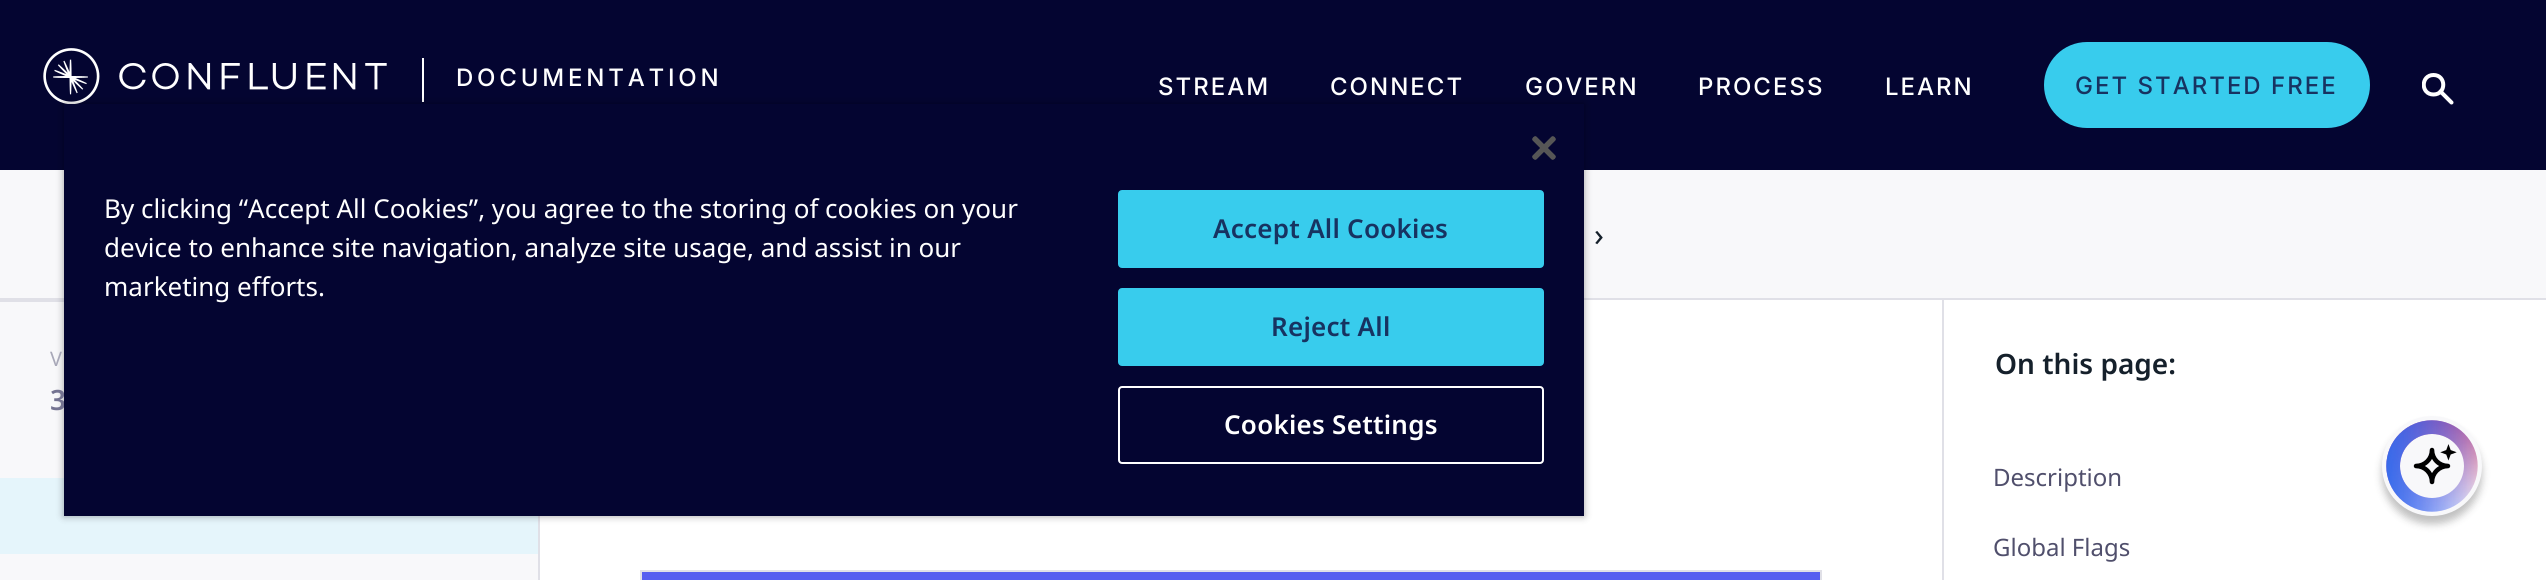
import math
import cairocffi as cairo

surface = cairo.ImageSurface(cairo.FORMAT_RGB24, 2546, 580)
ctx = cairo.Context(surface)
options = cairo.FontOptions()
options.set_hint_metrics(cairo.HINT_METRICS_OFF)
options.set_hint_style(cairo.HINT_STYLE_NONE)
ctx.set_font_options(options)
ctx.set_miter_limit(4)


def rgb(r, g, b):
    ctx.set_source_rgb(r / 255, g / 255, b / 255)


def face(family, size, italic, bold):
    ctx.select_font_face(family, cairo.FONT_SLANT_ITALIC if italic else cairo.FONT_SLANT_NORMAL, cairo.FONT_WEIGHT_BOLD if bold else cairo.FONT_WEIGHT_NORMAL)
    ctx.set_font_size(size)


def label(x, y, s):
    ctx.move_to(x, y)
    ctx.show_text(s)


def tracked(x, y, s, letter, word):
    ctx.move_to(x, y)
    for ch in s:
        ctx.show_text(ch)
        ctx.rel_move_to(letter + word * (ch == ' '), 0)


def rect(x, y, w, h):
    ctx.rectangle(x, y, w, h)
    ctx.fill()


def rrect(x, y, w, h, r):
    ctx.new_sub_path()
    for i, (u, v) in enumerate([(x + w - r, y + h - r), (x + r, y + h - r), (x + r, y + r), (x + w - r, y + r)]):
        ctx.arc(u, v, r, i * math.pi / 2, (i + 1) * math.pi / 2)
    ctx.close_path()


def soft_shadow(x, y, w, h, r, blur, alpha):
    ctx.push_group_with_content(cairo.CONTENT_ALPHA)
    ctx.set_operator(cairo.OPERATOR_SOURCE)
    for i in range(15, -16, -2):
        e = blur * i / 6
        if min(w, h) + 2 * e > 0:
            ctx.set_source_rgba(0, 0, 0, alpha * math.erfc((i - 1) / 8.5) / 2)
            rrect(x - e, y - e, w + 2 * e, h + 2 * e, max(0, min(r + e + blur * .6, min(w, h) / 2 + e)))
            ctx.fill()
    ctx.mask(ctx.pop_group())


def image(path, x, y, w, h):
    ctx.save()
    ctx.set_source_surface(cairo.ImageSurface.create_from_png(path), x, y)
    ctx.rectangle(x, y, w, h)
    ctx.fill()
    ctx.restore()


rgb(4, 5, 49)
ctx.paint()
image('image0.png', 43, 48, 344, 56)
rgb(255, 255, 255)
rect(422, 58, 2, 44)
face('Inter Medium', 24, 0, 0)
tracked(456, 86, 'DOCUMENTATION', 3.8, 0)
tracked(1158, 95, 'STREAM', 2, 0)
tracked(1330, 95, 'CONNECT', 2, 0)
tracked(1525, 95, 'GOVERN', 2, 0)
tracked(1698, 95, 'PROCESS', 2, 0)
tracked(1885, 95, 'LEARN', 2, 0)
rgb(56, 204, 237)
rrect(2044, 42, 326, 86, 43)
ctx.fill()
rgb(23, 51, 97)
tracked(2075, 94, 'GET STARTED FREE', 2, 0)
ctx.save()
ctx.rectangle(2422, 73, 32, 32)
ctx.clip()
ctx.new_path()
ctx.move_to(2433.5, 94.5)
ctx.curve_to(2446.5, 94.5, 2446.5, 75, 2433.5, 75)
ctx.curve_to(2420.5, 75, 2420.5, 94.5, 2433.5, 94.5)
ctx.close_path()
rgb(255, 255, 255)
ctx.set_line_width(4)
ctx.set_line_cap(cairo.LINE_CAP_ROUND)
ctx.stroke()
ctx.restore()
ctx.new_path()
ctx.move_to(2440.5, 91.5)
ctx.line_to(2451.5, 102.5)
rgb(255, 255, 255)
ctx.set_line_width(4)
ctx.set_line_cap(cairo.LINE_CAP_ROUND)
ctx.stroke()
rgb(248, 248, 250)
rect(0, 170, 2546, 128)
rgb(224, 224, 231)
rect(0, 298, 2546, 2)
rgb(248, 248, 250)
rect(0, 302, 538, 278)
rgb(224, 224, 231)
rect(538, 516, 2, 64)
rect(0, 300, 64, 2)
rgb(229, 245, 251)
rect(0, 478, 538, 76)
rgb(255, 255, 255)
rect(540, 300, 2006, 280)
rgb(0, 0, 0)
soft_shadow(64, 104, 1520, 412, 0, 4, 0.35)
face('Noto Sans SemiBold', 28, 0, 0)
rgb(116, 115, 145)
label(50, 410, '3')
rgb(4, 5, 49)
rect(64, 104, 1520, 412)
image('image1.png', 1532, 136, 24, 24)
face('Noto Sans', 26, 0, 0)
rgb(255, 255, 255)
label(104, 218, 'By clicking “Accept All Cookies”, you agree to the storing of cookies on your')
label(104, 257, 'device to enhance site navigation, analyze site usage, and assist in our')
label(104, 296, 'marketing efforts.')
rgb(56, 204, 237)
rrect(1119, 191, 424, 76, 3)
ctx.fill_preserve()
ctx.set_line_width(2)
ctx.set_line_cap(cairo.LINE_CAP_BUTT)
ctx.stroke()
face('Noto Sans SemiBold', 26, 0, 0)
rgb(23, 51, 97)
tracked(1213, 238, 'Accept All Cookies', 0.25, 0)
rgb(56, 204, 237)
rrect(1119, 289, 424, 76, 3)
ctx.fill_preserve()
ctx.stroke()
rgb(23, 51, 97)
tracked(1271, 336, 'Reject All', 0.25, 0)
rrect(1119, 387, 424, 76, 3)
rgb(255, 255, 255)
ctx.stroke()
tracked(1224, 434, 'Cookies Settings', 0.25, 0)
face('Noto Sans', 32, 0, 0)
rgb(21, 32, 43)
label(1594, 246, '›')
face('Noto Sans', 20, 0, 0)
rgb(168, 168, 184)
label(50, 366, 'V')
rgb(224, 224, 231)
rect(1942, 300, 2, 280)
ctx.save()
ctx.rectangle(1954, 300, 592, 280)
ctx.clip()
ctx.rectangle(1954, 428, 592, 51)
ctx.clip()
rgb(255, 255, 255)
soft_shadow(1944, 310, 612, 148, 0, 10, 1)
ctx.restore()
face('Noto Sans SemiBold', 28, 0, 0)
rgb(21, 32, 43)
label(1995, 374, 'On this page:')
face('Noto Sans', 24, 0, 0)
rgb(80, 79, 108)
label(1993, 486, 'Description')
label(1993, 556, 'Global Flags')
rgb(0, 0, 0)
soft_shadow(2382, 424, 100, 100, 50, 4, 0.25)
rgb(248, 248, 250)
ctx.arc(2432, 466, 50, 0, 2 * math.pi)
ctx.fill()
image('image2.png', 2386, 420, 92, 92)
ctx.rectangle(641, 571, 1180, 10)
rgb(224, 224, 231)
ctx.stroke()
rgb(86, 94, 240)
rect(642, 572, 1178, 8)
surface.write_to_png('render.png')
